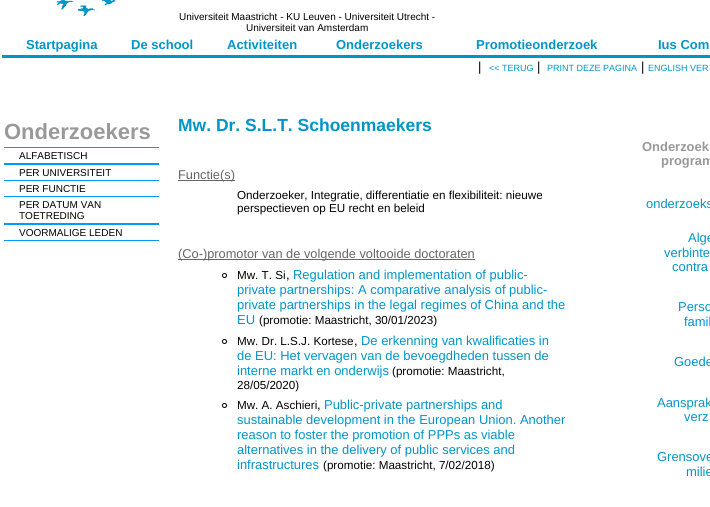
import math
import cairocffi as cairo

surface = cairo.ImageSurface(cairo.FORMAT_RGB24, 710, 507)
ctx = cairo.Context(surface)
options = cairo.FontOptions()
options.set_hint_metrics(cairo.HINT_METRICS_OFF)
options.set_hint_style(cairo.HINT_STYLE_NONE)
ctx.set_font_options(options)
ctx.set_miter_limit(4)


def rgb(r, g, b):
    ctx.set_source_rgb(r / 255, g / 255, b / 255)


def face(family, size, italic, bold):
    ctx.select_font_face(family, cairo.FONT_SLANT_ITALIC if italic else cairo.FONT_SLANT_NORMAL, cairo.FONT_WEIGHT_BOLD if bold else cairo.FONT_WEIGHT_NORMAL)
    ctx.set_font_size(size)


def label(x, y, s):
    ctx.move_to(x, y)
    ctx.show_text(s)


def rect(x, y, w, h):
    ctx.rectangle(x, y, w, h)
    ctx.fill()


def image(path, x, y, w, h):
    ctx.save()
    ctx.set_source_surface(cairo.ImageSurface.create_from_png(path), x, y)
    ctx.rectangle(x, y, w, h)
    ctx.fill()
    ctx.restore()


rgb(255, 255, 255)
ctx.paint()
image('image0.png', 56, 0, 61, 16)
face('Liberation Sans', 10, 0, 0)
rgb(0, 0, 0)
label(179, 20, 'Universiteit Maastricht - KU Leuven - Universiteit Utrecht -')
label(246, 31, 'Universiteit van Amsterdam')
face('Liberation Sans', 13, 0, 1)
rgb(0, 149, 200)
label(26, 49, 'Startpagina')
label(131, 49, 'De school')
label(227, 49, 'Activiteiten')
label(336, 49, 'Onderzoekers')
label(476, 49, 'Promotieonderzoek')
label(658, 49, 'Ius Com')
rect(2, 55, 708, 3)
face('Liberation Sans', 12.95, 0, 0)
rgb(0, 0, 0)
label(478, 71, '|')
face('Liberation Sans', 9, 0, 0)
rgb(0, 149, 200)
label(489, 71, '<< TERUG')
face('Liberation Sans', 12.95, 0, 0)
rgb(0, 0, 0)
label(537, 71, '|')
face('Liberation Sans', 9, 0, 0)
rgb(0, 149, 200)
label(547, 71, 'PRINT DEZE PAGINA')
face('Liberation Sans', 12.95, 0, 0)
rgb(0, 0, 0)
label(641, 71, '|')
face('Liberation Sans', 9, 0, 0)
rgb(0, 149, 200)
label(648, 71, 'ENGLISH VER')
face('Liberation Sans', 22, 0, 1)
rgb(153, 153, 153)
label(4, 139, 'Onderzoekers')
rgb(0, 153, 255)
rect(4, 147, 155, 1)
face('Liberation Sans', 10, 0, 0)
rgb(0, 0, 0)
label(19, 159, 'ALFABETISCH')
rgb(0, 153, 255)
rect(4, 163, 155, 2)
rgb(0, 0, 0)
label(19, 176, 'PER UNIVERSITEIT')
rgb(0, 153, 255)
rect(4, 180, 155, 1)
rgb(0, 0, 0)
label(19, 192, 'PER FUNCTIE')
rgb(0, 153, 255)
rect(4, 196, 155, 1)
rgb(0, 0, 0)
label(19, 208, 'PER DATUM VAN')
label(19, 219, 'TOETREDING')
rgb(0, 153, 255)
rect(4, 223, 155, 2)
rgb(0, 0, 0)
label(19, 236, 'VOORMALIGE LEDEN')
rgb(0, 153, 255)
rect(4, 240, 155, 1)
face('Liberation Sans', 17.5, 0, 1)
rgb(0, 149, 200)
label(178, 131, 'Mw. Dr. S.L.T. Schoenmaekers')
rgb(102, 102, 102)
rect(178, 180, 57, 1)
face('Liberation Sans', 12.8, 0, 0)
label(178, 179, 'Functie(s)')
face('Liberation Sans', 11.65, 0, 0)
rgb(0, 0, 0)
label(237, 199, 'Onderzoeker, Integratie, differentiatie en flexibiliteit: nieuwe')
label(237, 212, 'perspectieven op EU recht en beleid')
rgb(102, 102, 102)
rect(178, 259, 297, 1)
face('Liberation Sans', 12.8, 0, 0)
label(178, 258, '(Co-)promotor van de volgende voltooide doctoraten')
ctx.new_path()
ctx.arc(224.5, 275.5, 2, 0, 2 * math.pi)
rgb(0, 0, 0)
ctx.set_line_width(1)
ctx.stroke()
face('Liberation Sans', 11.65, 0, 0)
label(237, 279, 'Mw. T. Si')
face('Liberation Sans', 12.95, 0, 0)
rgb(0, 149, 200)
label(293, 279, 'Regulation and implementation of public-')
rgb(0, 0, 0)
label(286, 279, ',')
rgb(0, 149, 200)
label(237, 294, 'private partnerships: A comparative analysis of public-')
label(237, 309, 'private partnerships in the legal regimes of China and the')
label(237, 324, 'EU')
face('Liberation Sans', 11.65, 0, 0)
rgb(0, 0, 0)
label(259, 324, '(promotie: Maastricht, 30/01/2023)')
ctx.new_path()
ctx.arc(224.5, 341.5, 2, 0, 2 * math.pi)
ctx.stroke()
label(237, 345, 'Mw. Dr. L.S.J. Kortese')
face('Liberation Sans', 12.95, 0, 0)
rgb(0, 149, 200)
label(361, 345, 'De erkenning van kwalificaties in')
rgb(0, 0, 0)
label(354, 345, ',')
rgb(0, 149, 200)
label(237, 360, 'de EU: Het vervagen van de bevoegdheden tussen de')
label(237, 375, 'interne markt en onderwijs')
face('Liberation Sans', 11.65, 0, 0)
rgb(0, 0, 0)
label(392, 375, '(promotie: Maastricht,')
label(237, 389, '28/05/2020)')
ctx.new_path()
ctx.arc(224.5, 405.5, 2, 0, 2 * math.pi)
ctx.stroke()
label(237, 409, 'Mw. A. Aschieri')
face('Liberation Sans', 12.95, 0, 0)
rgb(0, 149, 200)
label(324, 409, 'Public-private partnerships and')
rgb(0, 0, 0)
label(317, 409, ',')
rgb(0, 149, 200)
label(237, 424, 'sustainable development in the European Union. Another')
label(237, 439, 'reason to foster the promotion of PPPs as viable')
label(237, 454, 'alternatives in the delivery of public services and')
label(237, 469, 'infrastructures')
face('Liberation Sans', 11.65, 0, 0)
rgb(0, 0, 0)
label(323, 469, '(promotie: Maastricht, 7/02/2018)')
face('Liberation Sans', 12.95, 0, 1)
rgb(153, 153, 153)
label(642, 151, 'Onderzoek')
label(661, 165, 'program')
face('Liberation Sans', 12.95, 0, 0)
rgb(0, 149, 200)
label(646, 208, 'onderzoeks')
label(688, 242, 'Alge')
label(664, 257, 'verbinte')
label(672, 271, 'contra')
label(678, 311, 'Perso')
label(684, 326, 'famil')
label(674, 366, 'Goede')
label(657, 407, 'Aansprak')
label(684, 421, 'verz')
label(657, 461, 'Grensove')
label(686, 476, 'milie')
surface.write_to_png('render.png')
